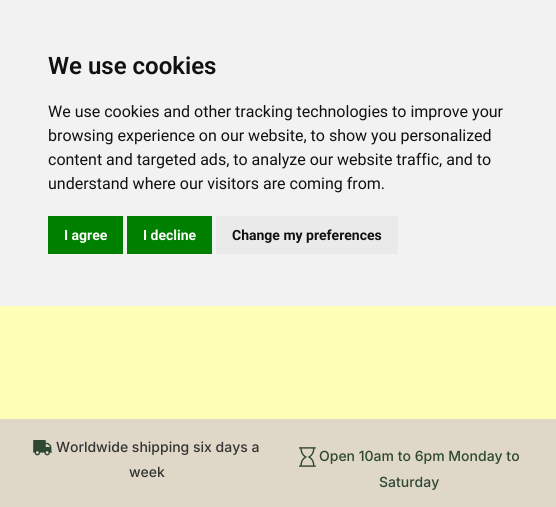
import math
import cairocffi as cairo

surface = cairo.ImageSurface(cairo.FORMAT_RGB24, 556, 507)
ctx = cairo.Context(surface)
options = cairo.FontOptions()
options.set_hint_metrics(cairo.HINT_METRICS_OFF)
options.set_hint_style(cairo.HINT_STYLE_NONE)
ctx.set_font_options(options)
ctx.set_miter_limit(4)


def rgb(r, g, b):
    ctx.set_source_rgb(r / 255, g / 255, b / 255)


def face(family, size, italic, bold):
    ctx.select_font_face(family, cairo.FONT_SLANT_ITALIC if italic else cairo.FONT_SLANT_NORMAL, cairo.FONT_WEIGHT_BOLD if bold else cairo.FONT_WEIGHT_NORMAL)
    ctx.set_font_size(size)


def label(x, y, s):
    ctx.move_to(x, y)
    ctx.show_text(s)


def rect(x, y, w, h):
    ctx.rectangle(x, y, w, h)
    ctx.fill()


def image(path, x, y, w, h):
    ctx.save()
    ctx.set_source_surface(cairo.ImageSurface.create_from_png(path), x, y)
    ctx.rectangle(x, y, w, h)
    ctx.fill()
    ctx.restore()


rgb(255, 255, 183)
ctx.paint()
rgb(242, 242, 242)
rect(0, 0, 556, 306)
face('Roboto SemiBold', 24, 0, 0)
rgb(17, 17, 17)
label(48, 74, 'We use cookies')
face('Roboto', 16, 0, 0)
label(48, 117, 'We use cookies and other tracking technologies to improve your')
label(48, 141, 'browsing experience on our website, to show you personalized')
label(48, 165, 'content and targeted ads, to analyze our website traffic, and to')
label(48, 189, 'understand where our visitors are coming from.')
rgb(0, 128, 0)
rect(48, 216, 75, 38)
face('Roboto', 14, 0, 1)
rgb(255, 255, 255)
label(64, 240, 'I agree')
rgb(0, 128, 0)
rect(127, 216, 85, 38)
rgb(255, 255, 255)
label(143, 240, 'I decline')
rgb(234, 234, 234)
rect(216, 216, 182, 38)
rgb(17, 17, 17)
label(232, 240, 'Change my preferences')
rgb(223, 216, 200)
rect(0, 419, 556, 88)
image('image0.png', 33, 440, 19, 16)
face('Inter Medium', 14, 0, 0)
rgb(51, 51, 51)
label(56, 452, 'Worldwide shipping six days a')
label(129, 477, 'week')
image('image1.png', 299, 447, 17, 20)
rgb(46, 71, 49)
label(319, 461, 'Open 10am to 6pm Monday to')
label(379, 487, 'Saturday')
surface.write_to_png('render.png')
